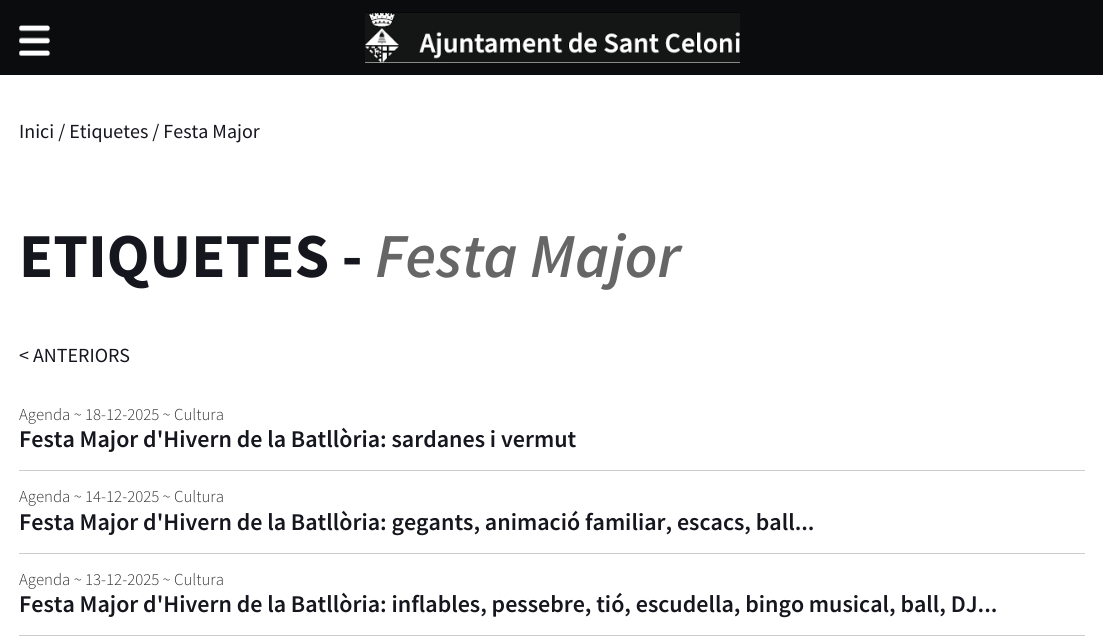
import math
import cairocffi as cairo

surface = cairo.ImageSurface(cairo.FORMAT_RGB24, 1103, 640)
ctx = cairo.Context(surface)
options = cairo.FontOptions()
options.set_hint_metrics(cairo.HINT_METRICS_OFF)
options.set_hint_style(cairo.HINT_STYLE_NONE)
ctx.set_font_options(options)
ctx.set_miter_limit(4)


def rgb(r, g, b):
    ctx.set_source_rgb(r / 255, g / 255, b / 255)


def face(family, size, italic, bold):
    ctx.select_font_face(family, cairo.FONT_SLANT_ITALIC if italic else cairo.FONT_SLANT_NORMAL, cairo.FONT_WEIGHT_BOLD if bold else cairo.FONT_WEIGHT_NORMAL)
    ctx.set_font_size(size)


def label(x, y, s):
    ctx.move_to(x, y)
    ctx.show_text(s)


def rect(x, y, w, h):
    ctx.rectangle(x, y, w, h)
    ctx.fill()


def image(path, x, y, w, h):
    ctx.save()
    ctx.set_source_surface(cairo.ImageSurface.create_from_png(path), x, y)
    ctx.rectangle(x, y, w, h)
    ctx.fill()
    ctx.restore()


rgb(255, 255, 255)
ctx.paint()
rgb(10, 12, 13)
rect(0, 0, 1103, 75)
rgb(255, 255, 255)
rect(19, 25, 31, 31)
image('image0.png', 19, 25, 31, 31)
rect(365, 13, 375, 50)
image('image1.png', 365, 12, 375, 51)
face('Source Sans Pro', 20, 0, 0)
rgb(21, 22, 30)
label(19, 138, 'Inici / Etiquetes / Festa Major')
face('Source Sans Pro', 62.5, 0, 1)
label(19, 277, 'ETIQUETES -')
face('Source Sans Pro SemiBold', 62.5, 1, 0)
rgb(102, 102, 102)
label(375, 277, 'Festa Major')
face('Source Sans Pro', 20, 0, 0)
rgb(21, 22, 30)
label(19, 362, '< ANTERIORS')
face('Source Sans Pro Light', 16.75, 0, 0)
rgb(51, 51, 51)
label(19, 420, 'Agenda ~ 18-12-2025 ~ Cultura')
face('Source Sans Pro SemiBold', 24, 0, 0)
rgb(21, 22, 30)
label(19, 447, 'Festa Major d\'Hivern de la Batllòria: sardanes i vermut')
rgb(204, 204, 204)
rect(19, 470, 1066, 1)
face('Source Sans Pro Light', 16.75, 0, 0)
rgb(51, 51, 51)
label(19, 502, 'Agenda ~ 14-12-2025 ~ Cultura')
face('Source Sans Pro SemiBold', 24, 0, 0)
rgb(21, 22, 30)
label(19, 530, 'Festa Major d\'Hivern de la Batllòria: gegants, animació familiar, escacs, ball...')
rgb(204, 204, 204)
rect(19, 553, 1066, 1)
face('Source Sans Pro Light', 16.75, 0, 0)
rgb(51, 51, 51)
label(19, 585, 'Agenda ~ 13-12-2025 ~ Cultura')
face('Source Sans Pro SemiBold', 24, 0, 0)
rgb(21, 22, 30)
label(19, 612, 'Festa Major d\'Hivern de la Batllòria: inflables, pessebre, tió, escudella, bingo musical, ball, DJ...')
rgb(204, 204, 204)
rect(19, 635, 1066, 1)
surface.write_to_png('render.png')
